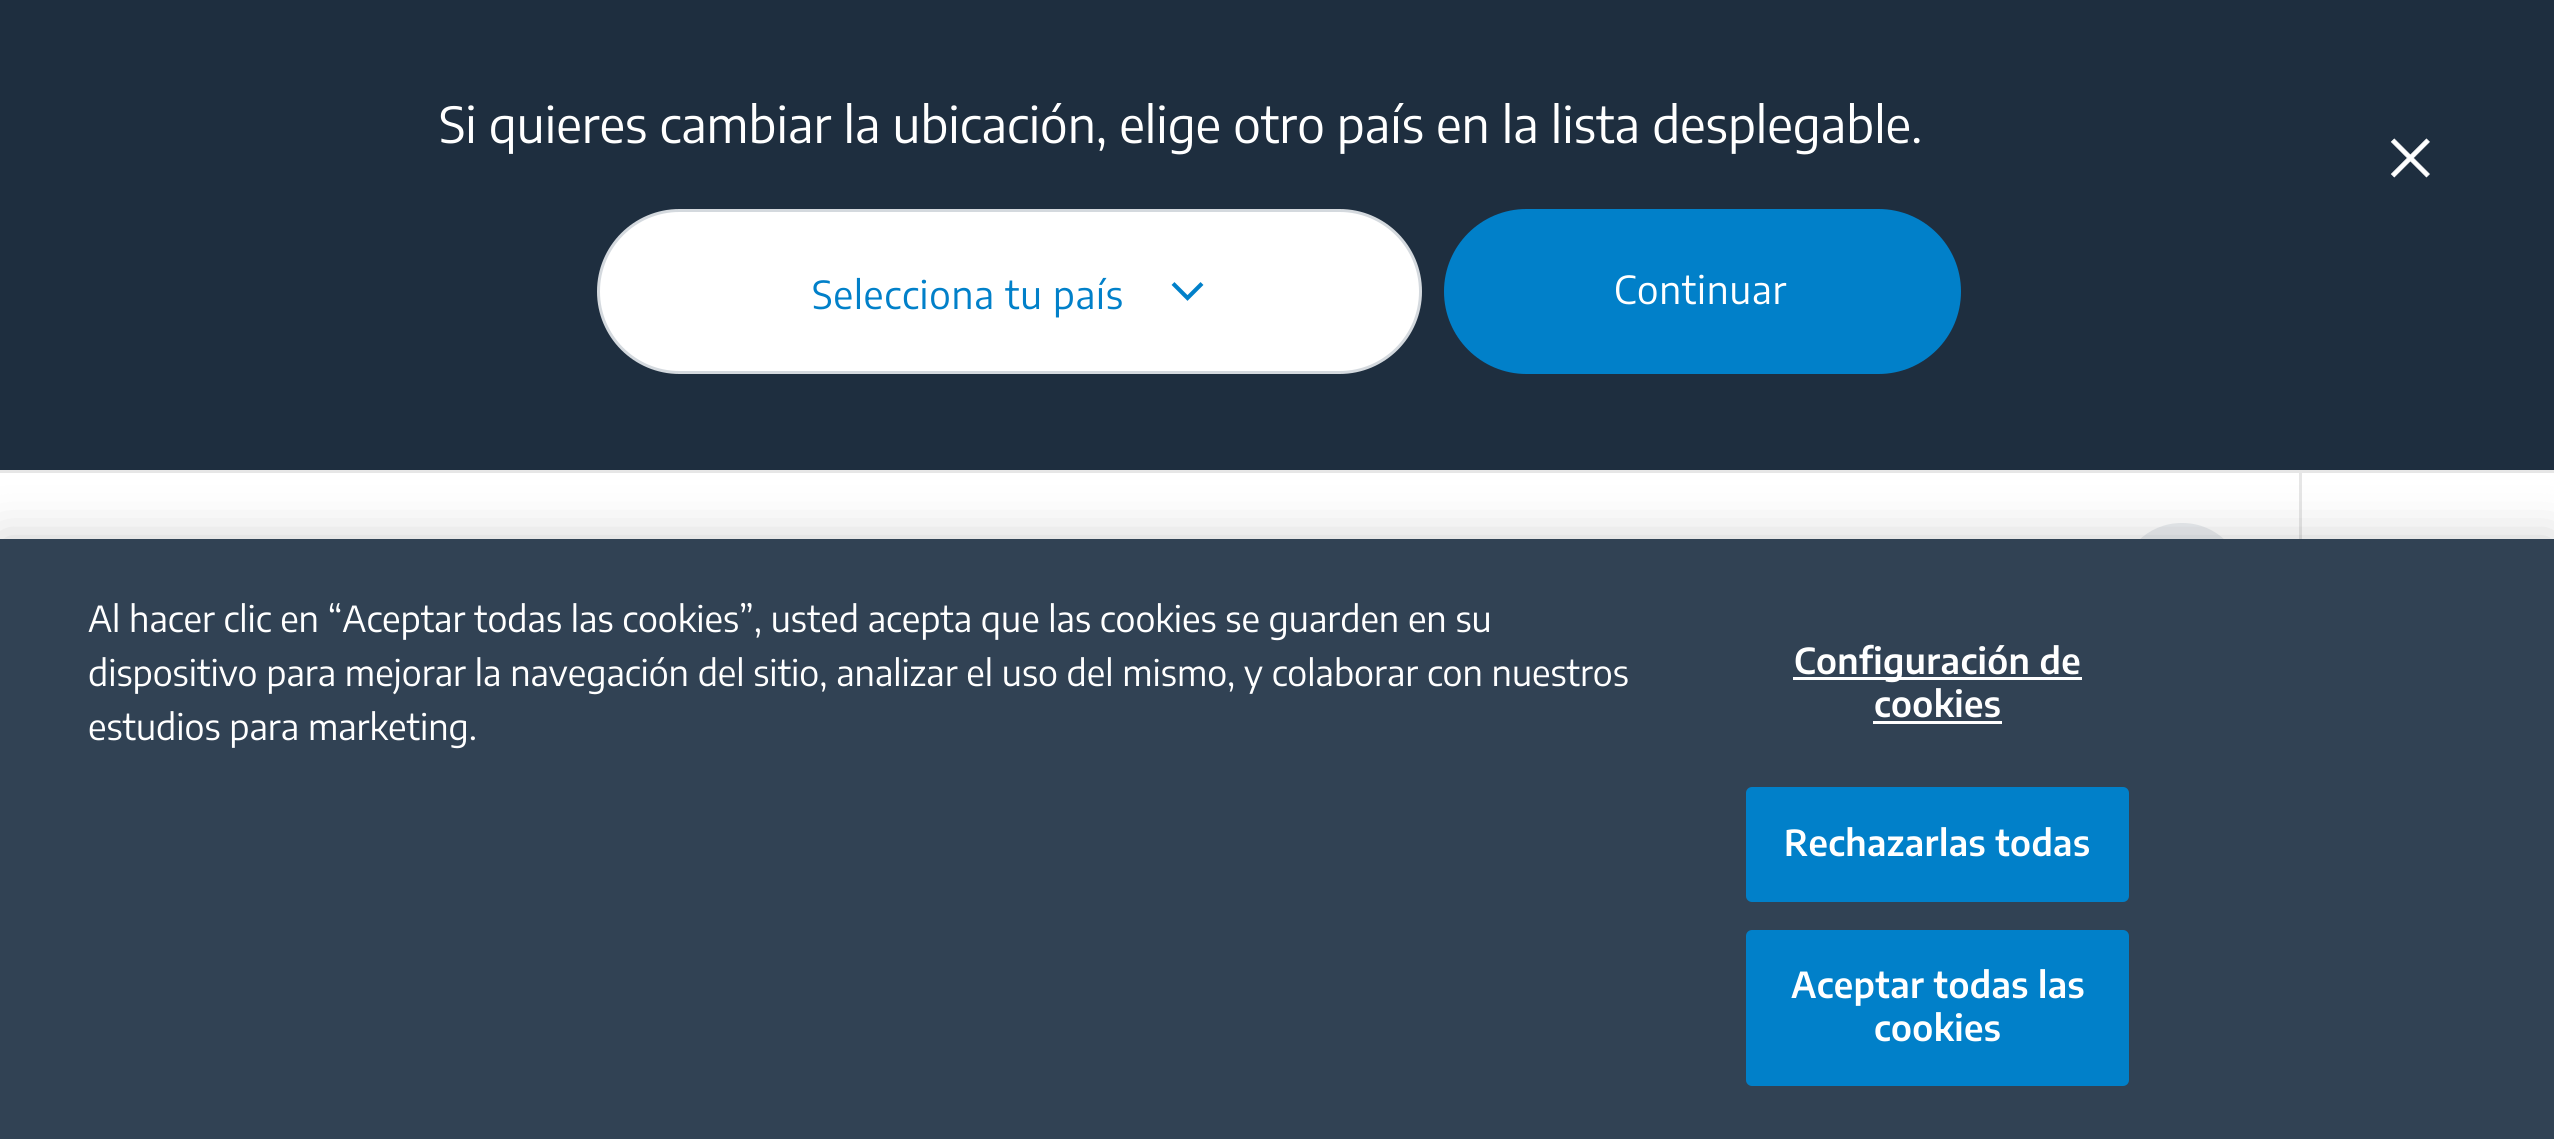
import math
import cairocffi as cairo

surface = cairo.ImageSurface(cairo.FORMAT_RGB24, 2554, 1139)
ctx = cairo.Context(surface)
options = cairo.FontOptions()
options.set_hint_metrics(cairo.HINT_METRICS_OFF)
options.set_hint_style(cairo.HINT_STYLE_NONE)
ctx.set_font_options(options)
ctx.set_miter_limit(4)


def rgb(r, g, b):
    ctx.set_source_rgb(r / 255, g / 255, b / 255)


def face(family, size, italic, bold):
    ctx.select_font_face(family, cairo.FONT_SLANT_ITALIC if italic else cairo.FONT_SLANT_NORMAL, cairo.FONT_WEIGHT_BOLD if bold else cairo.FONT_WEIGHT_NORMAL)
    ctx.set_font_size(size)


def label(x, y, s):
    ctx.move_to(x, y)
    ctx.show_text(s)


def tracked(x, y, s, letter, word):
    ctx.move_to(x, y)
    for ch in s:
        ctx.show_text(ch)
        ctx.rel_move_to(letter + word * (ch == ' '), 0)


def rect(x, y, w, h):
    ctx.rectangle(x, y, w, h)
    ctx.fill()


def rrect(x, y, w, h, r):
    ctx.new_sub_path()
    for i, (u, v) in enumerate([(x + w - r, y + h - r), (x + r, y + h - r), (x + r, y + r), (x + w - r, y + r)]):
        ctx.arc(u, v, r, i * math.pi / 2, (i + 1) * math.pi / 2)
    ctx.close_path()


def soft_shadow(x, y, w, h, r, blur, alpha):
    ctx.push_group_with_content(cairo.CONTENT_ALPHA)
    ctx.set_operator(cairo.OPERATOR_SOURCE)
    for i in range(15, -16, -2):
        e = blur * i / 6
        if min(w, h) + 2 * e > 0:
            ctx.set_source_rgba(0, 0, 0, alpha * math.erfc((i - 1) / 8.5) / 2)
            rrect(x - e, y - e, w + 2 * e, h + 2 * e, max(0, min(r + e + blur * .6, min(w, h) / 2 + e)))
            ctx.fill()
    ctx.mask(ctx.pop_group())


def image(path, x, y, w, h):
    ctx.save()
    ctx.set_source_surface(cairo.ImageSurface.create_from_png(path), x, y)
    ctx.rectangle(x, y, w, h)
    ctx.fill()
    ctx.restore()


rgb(255, 255, 255)
ctx.paint()
rgb(30, 46, 63)
rect(0, 0, 2554, 470)
face('Encode Sans', 49.5, 0, 0)
rgb(255, 255, 255)
label(439, 143, 'Si quieres cambiar la ubicación, elige otro país en la lista desplegable.')
rrect(598.5, 210.5, 822, 162, 81)
ctx.fill_preserve()
rgb(212, 217, 222)
ctx.set_line_width(3)
ctx.stroke()
face('Encode Sans', 38.5, 0, 0)
rgb(1, 128, 201)
tracked(812, 309, 'Selecciona tu país', 0.8, 0)
ctx.new_path()
ctx.move_to(1173, 283.5)
ctx.line_to(1187.5, 298)
ctx.line_to(1202, 283.5)
ctx.set_line_width(4.1)
ctx.stroke()
rrect(1444, 209, 517, 165, 82.5)
ctx.fill()
rgb(255, 255, 255)
tracked(1614, 304, 'Continuar', 0.8, 0)
image('image0.png', 2390, 138, 40, 40)
rgb(230, 230, 230)
rect(0, 470, 2554, 3)
rect(2299, 473, 3, 66)
rgb(233, 236, 239)
rrect(2120, 523, 124, 123, 61.5)
ctx.fill()
rgb(0, 0, 0)
soft_shadow(0, 539, 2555, 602, 0, 25, 0.2)
rgb(49, 66, 84)
rect(0, 539, 2554, 600)
face('Encode Sans', 35.75, 0, 0)
rgb(255, 255, 255)
label(88, 632, 'Al hacer clic en “Aceptar todas las cookies”, usted acepta que las cookies se guarden en su')
label(88, 686, 'dispositivo para mejorar la navegación del sitio, analizar el uso del mismo, y colaborar con nuestros')
label(88, 740, 'estudios para marketing.')
rect(1793, 677, 289, 3)
face('Encode Sans SemiBold', 35.75, 0, 0)
tracked(1794, 674, 'Configuración de', 0.4, 0)
tracked(1874, 717, 'cookies', 0.4, 0)
rect(1873, 721, 129, 3)
rgb(1, 128, 201)
rrect(1747.5, 788.5, 380, 112, 4.5)
ctx.fill_preserve()
ctx.set_line_width(3)
ctx.stroke()
rgb(255, 255, 255)
tracked(1784, 856, 'Rechazarlas todas', 0.4, 0)
rgb(1, 128, 201)
rrect(1747.5, 931.5, 380, 153, 4.5)
ctx.fill_preserve()
ctx.stroke()
rgb(255, 255, 255)
tracked(1791, 998, 'Aceptar todas las', 0.4, 0)
tracked(1874, 1041, 'cookies', 0.4, 0)
surface.write_to_png('render.png')
